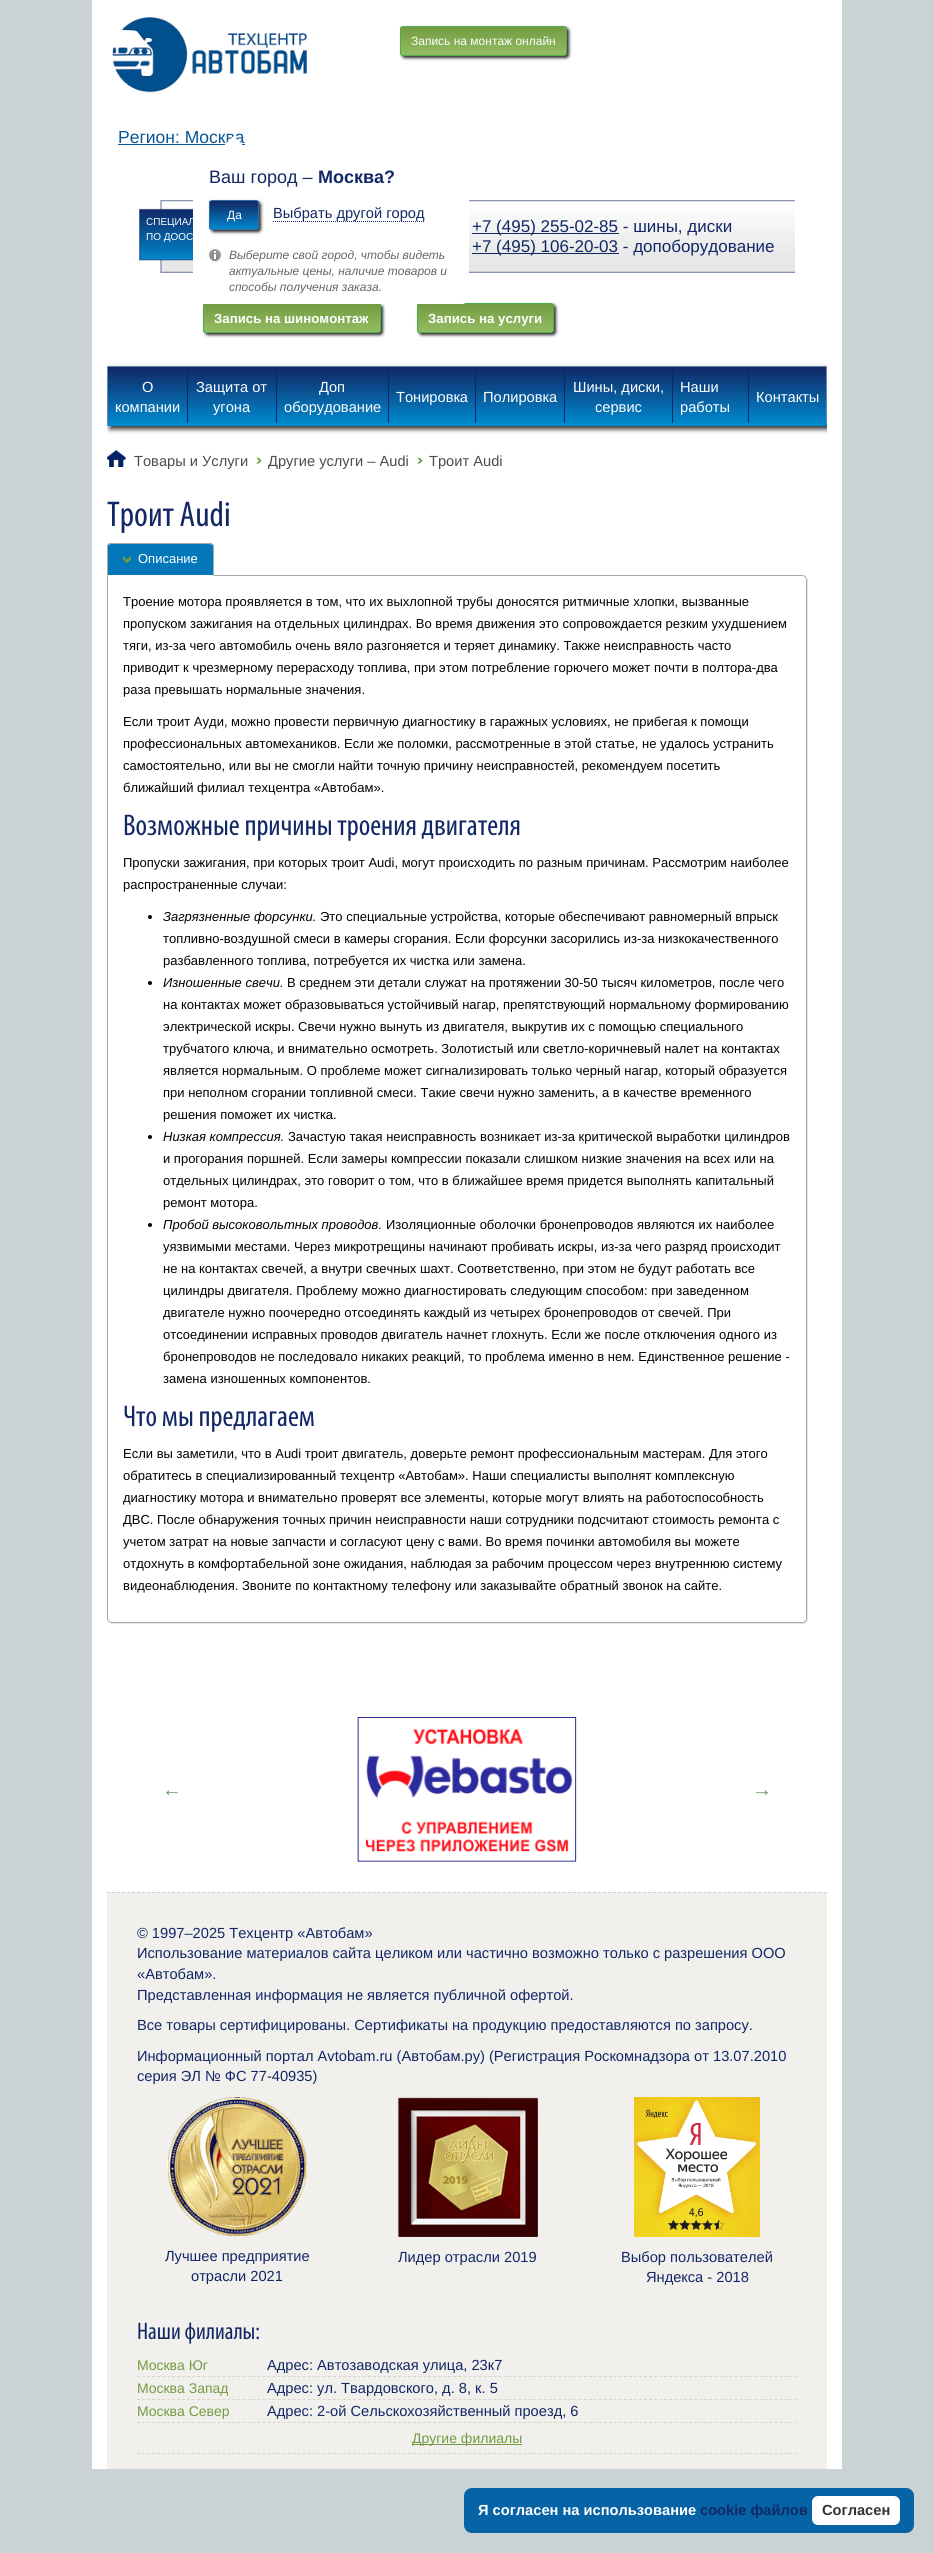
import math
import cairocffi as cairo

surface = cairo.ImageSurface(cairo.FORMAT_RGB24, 934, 2553)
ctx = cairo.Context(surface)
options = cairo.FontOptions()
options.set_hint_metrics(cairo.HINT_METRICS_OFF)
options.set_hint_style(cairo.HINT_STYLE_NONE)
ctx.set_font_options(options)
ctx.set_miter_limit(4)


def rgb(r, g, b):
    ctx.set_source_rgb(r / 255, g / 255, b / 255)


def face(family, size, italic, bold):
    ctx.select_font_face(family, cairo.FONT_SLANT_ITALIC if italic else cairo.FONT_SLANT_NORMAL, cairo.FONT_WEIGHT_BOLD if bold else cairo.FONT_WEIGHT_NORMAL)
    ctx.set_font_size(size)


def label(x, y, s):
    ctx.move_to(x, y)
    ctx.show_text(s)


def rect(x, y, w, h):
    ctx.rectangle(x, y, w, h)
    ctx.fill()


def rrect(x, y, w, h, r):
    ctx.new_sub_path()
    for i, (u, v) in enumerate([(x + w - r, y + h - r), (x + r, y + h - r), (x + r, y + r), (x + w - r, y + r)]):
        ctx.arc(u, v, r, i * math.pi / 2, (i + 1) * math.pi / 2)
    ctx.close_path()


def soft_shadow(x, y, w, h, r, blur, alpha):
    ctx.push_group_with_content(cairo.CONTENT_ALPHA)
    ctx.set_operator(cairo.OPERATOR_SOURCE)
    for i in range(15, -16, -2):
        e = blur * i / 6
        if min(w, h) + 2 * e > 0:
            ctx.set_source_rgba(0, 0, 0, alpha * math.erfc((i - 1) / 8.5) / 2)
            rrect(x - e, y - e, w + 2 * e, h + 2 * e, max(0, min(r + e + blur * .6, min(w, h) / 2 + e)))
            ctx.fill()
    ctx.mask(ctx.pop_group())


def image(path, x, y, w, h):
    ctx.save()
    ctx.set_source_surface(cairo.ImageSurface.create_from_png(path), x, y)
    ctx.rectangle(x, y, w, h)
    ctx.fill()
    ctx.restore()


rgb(202, 210, 213)
ctx.paint()
rgb(255, 255, 255)
rect(92, 0, 750, 2469)
rgb(30, 30, 30)
soft_shadow(402, 28, 167, 30, 3, 1.5, 0.95)
ctx.save()
rrect(400, 26, 167, 30, 3)
ctx.clip()
gradient = cairo.LinearGradient(484, 27, 484, 55)
gradient.add_color_stop_rgba(0, 0.451, 0.608, 0.259, 1)
gradient.add_color_stop_rgba(1, 0.58, 0.737, 0.388, 1)
ctx.set_source(gradient)
rect(400, 27, 167, 28)
ctx.restore()
rrect(400.5, 26.5, 166, 29, 2.5)
rgb(76, 174, 76)
ctx.set_line_width(1)
ctx.stroke()
face('Liberation Sans', 12, 0, 0)
rgb(255, 255, 255)
label(411, 45, 'Запись на монтаж онлайн')
image('image0.png', 112, 17, 196, 76)
face('Liberation Sans', 17.5, 0, 0)
rgb(8, 86, 151)
label(118, 143, 'Регион: Москва')
rect(118, 144, 127, 1)
image('image2.png', 139, 200, 656, 73)
rgb(30, 30, 30)
soft_shadow(205, 305, 178, 30, 3, 1.5, 0.95)
ctx.save()
rrect(203, 303, 178, 30, 3)
ctx.clip()
gradient = cairo.LinearGradient(292, 304, 292, 332)
gradient.add_color_stop_rgba(0, 0.451, 0.608, 0.259, 1)
gradient.add_color_stop_rgba(1, 0.58, 0.737, 0.388, 1)
ctx.set_source(gradient)
rect(203, 304, 178, 28)
ctx.restore()
rrect(203.5, 303.5, 177, 29, 2.5)
rgb(76, 174, 76)
ctx.stroke()
rgb(30, 30, 30)
soft_shadow(419, 305, 137, 30, 3, 1.5, 0.95)
ctx.save()
rrect(417, 303, 137, 30, 3)
ctx.clip()
gradient = cairo.LinearGradient(486, 304, 486, 332)
gradient.add_color_stop_rgba(0, 0.451, 0.608, 0.259, 1)
gradient.add_color_stop_rgba(1, 0.58, 0.737, 0.388, 1)
ctx.set_source(gradient)
rect(417, 304, 137, 28)
ctx.restore()
rrect(417.5, 303.5, 136, 29, 2.5)
rgb(76, 174, 76)
ctx.stroke()
rgb(255, 255, 255)
rrect(193, 148, 276, 156, 7)
ctx.fill()
ctx.new_path()
ctx.move_to(233.5, 136)
ctx.line_to(245.5, 148)
ctx.line_to(233.5, 160)
ctx.line_to(221.5, 148)
ctx.close_path()
ctx.fill()
face('Liberation Sans', 18, 0, 0)
rgb(17, 39, 102)
label(209, 183, 'Ваш город –')
face('Liberation Sans', 18, 0, 1)
label(318, 183, 'Москва?')
rgb(30, 30, 30)
soft_shadow(211, 202, 50, 30, 3, 1.5, 0.95)
ctx.save()
rrect(209, 200, 50, 30, 3)
ctx.clip()
gradient = cairo.LinearGradient(234, 201, 234, 229)
gradient.add_color_stop_rgba(0, 0.067, 0.153, 0.4, 1)
gradient.add_color_stop_rgba(1, 0, 0.533, 0.8, 1)
ctx.set_source(gradient)
rect(209, 201, 50, 28)
ctx.restore()
rrect(209.5, 200.5, 49, 29, 2.5)
rgb(46, 109, 164)
ctx.stroke()
face('Liberation Sans', 12, 0, 0)
rgb(255, 255, 255)
label(227, 219, 'Да')
ctx.new_path()
ctx.move_to(273, 221.5)
ctx.line_to(425, 221.5)
rgb(17, 39, 102)
ctx.set_dash([1, 1])
ctx.stroke()
face('Liberation Sans', 14.65, 0, 0)
label(273, 218, 'Выбрать другой город')
rgb(153, 153, 153)
ctx.new_path()
ctx.arc(215, 255, 6, 0, 2 * math.pi)
ctx.fill()
image('image1.png', 210, 251, 10, 12)
face('Liberation Sans', 12, 1, 0)
rgb(102, 102, 102)
label(229, 259, 'Выберите свой город, чтобы видеть')
label(229, 275, 'актуальные цены, наличие товаров и')
label(229, 291, 'способы получения заказа.')
face('Liberation Sans', 10, 0, 0)
rgb(255, 255, 255)
label(146, 225, 'СПЕЦИАЛ')
label(146, 240, 'ПО ДООС')
rgb(17, 39, 102)
rect(472, 233, 147, 1)
face('Liberation Sans', 17, 0, 0)
label(472, 232, '+7 (495) 255-02-85 - шины, диски')
rect(472, 253, 147, 1)
label(472, 252, '+7 (495) 106-20-03 - допоборудование')
face('Liberation Sans', 13.25, 0, 1)
rgb(255, 255, 255)
label(214, 323, 'Запись на шиномонтаж')
label(428, 323, 'Запись на услуги')
ctx.save()
ctx.rectangle(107, 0, 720, 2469)
ctx.clip()
rgb(30, 30, 30)
soft_shadow(110, 369, 720, 60, 0, 2.5, 0.95)
ctx.restore()
gradient = cairo.LinearGradient(467, 367, 467, 423)
gradient.add_color_stop_rgba(0, 0.067, 0.153, 0.4, 1)
gradient.add_color_stop_rgba(1, 0, 0.533, 0.8, 1)
ctx.set_source(gradient)
rect(108, 367, 718, 56)
rgb(109, 133, 165)
rect(107, 366, 720, 1)
ctx.new_path()
ctx.move_to(827, 366)
ctx.line_to(827, 426)
ctx.line_to(826, 423)
ctx.line_to(826, 367)
ctx.close_path()
ctx.fill()
rgb(0, 136, 204)
ctx.new_path()
ctx.move_to(827, 426)
ctx.line_to(107, 426)
ctx.line_to(108, 423)
ctx.line_to(826, 423)
ctx.close_path()
ctx.fill()
rgb(109, 133, 165)
ctx.new_path()
ctx.move_to(107, 426)
ctx.line_to(107, 366)
ctx.line_to(108, 367)
ctx.line_to(108, 423)
ctx.close_path()
ctx.fill()
rgb(17, 39, 102)
rect(187, 367, 1, 56)
face('Liberation Sans', 14.65, 0, 0)
rgb(255, 255, 255)
label(142, 392, 'О')
label(115, 412, 'компании')
rgb(17, 39, 102)
rect(276, 367, 1, 56)
rgb(255, 255, 255)
label(196, 392, 'Защита от')
label(213, 412, 'угона')
rgb(17, 39, 102)
rect(388, 367, 1, 56)
rgb(255, 255, 255)
label(319, 392, 'Доп')
label(284, 412, 'оборудование')
rgb(17, 39, 102)
rect(475, 367, 1, 56)
rgb(255, 255, 255)
label(396, 402, 'Тонировка')
rgb(17, 39, 102)
rect(564, 367, 1, 56)
rgb(255, 255, 255)
label(483, 402, 'Полировка')
rgb(17, 39, 102)
rect(672, 367, 1, 56)
rgb(255, 255, 255)
label(573, 392, 'Шины, диски,')
label(595, 412, 'сервис')
rgb(17, 39, 102)
rect(748, 367, 1, 56)
rgb(255, 255, 255)
label(680, 392, 'Наши')
label(680, 412, 'работы')
label(756, 402, 'Контакты')
image('image3.png', 107, 450, 19, 17)
rgb(76, 76, 76)
label(134, 466, 'Товары и Услуги')
image('image4.png', 256, 457, 6, 7)
label(268, 466, 'Другие услуги – Audi')
image('image4.png', 417, 457, 6, 7)
label(429, 466, 'Троит Audi')
face('Myriad', 36, 0, 0)
rgb(17, 39, 102)
label(107, 526, 'Троит Audi')
rgb(230, 228, 221)
ctx.new_path()
ctx.move_to(109, 1622)
ctx.curve_to(110, 1623, 111, 1624, 113, 1624)
ctx.line_to(803, 1624)
ctx.curve_to(806, 1624, 808, 1622, 808, 1619)
ctx.line_to(808, 581)
ctx.curve_to(808, 579, 807, 578, 806, 577)
ctx.curve_to(807, 578, 807, 579, 807, 580)
ctx.line_to(807, 1618)
ctx.curve_to(807, 1621, 805, 1623, 802, 1623)
ctx.line_to(112, 1623)
ctx.curve_to(111, 1623, 110, 1623, 109, 1622)
ctx.close_path()
ctx.fill()
rgb(255, 255, 255)
ctx.new_path()
ctx.move_to(107.5, 575.5)
ctx.line_to(802, 575.5)
ctx.curve_to(804.5, 575.5, 806.5, 577.5, 806.5, 580)
ctx.line_to(806.5, 1618)
ctx.curve_to(806.5, 1620.5, 804.5, 1622.5, 802, 1622.5)
ctx.line_to(112, 1622.5)
ctx.curve_to(109.5, 1622.5, 107.5, 1620.5, 107.5, 1618)
ctx.close_path()
ctx.fill_preserve()
rgb(170, 170, 170)
ctx.set_dash([])
ctx.stroke()
rgb(2, 120, 187)
ctx.new_path()
ctx.move_to(111, 543)
ctx.line_to(210, 543)
ctx.curve_to(212, 543, 214, 545, 214, 547)
ctx.line_to(214, 576)
ctx.line_to(107, 576)
ctx.line_to(107, 547)
ctx.curve_to(107, 545, 109, 543, 111, 543)
ctx.close_path()
ctx.fill()
image('image5.png', 123, 556, 8, 7)
rgb(170, 170, 170)
ctx.new_path()
ctx.move_to(111, 543)
ctx.line_to(108, 544)
ctx.line_to(109, 545)
ctx.line_to(111, 544)
ctx.line_to(210, 544)
ctx.line_to(212, 545)
ctx.line_to(213, 544)
ctx.line_to(210, 543)
ctx.close_path()
ctx.fill()
ctx.new_path()
ctx.move_to(214, 576)
ctx.line_to(214, 547)
ctx.curve_to(214, 546, 213.5, 545, 213, 544)
ctx.line_to(212, 545)
ctx.curve_to(213, 545, 213, 546, 213, 547)
ctx.line_to(213, 575)
ctx.close_path()
ctx.fill()
rgb(255, 255, 255)
ctx.new_path()
ctx.move_to(214, 576)
ctx.line_to(213, 575)
ctx.line_to(108, 575)
ctx.line_to(107, 576)
ctx.close_path()
ctx.fill()
rgb(170, 170, 170)
ctx.new_path()
ctx.move_to(107, 576)
ctx.line_to(108, 575)
ctx.line_to(108, 547)
ctx.curve_to(108, 546, 108, 545, 109, 545)
ctx.line_to(108, 544)
ctx.curve_to(107.5, 545, 107, 546, 107, 547)
ctx.close_path()
ctx.fill()
face('Liberation Sans', 13, 0, 0)
rgb(255, 255, 255)
label(138, 563, 'Описание')
rgb(0, 0, 0)
label(123, 606, 'Троение мотора проявляется в том, что их выхлопной трубы доносятся ритмичные хлопки, вызванные')
label(123, 628, 'пропуском зажигания на отдельных цилиндрах. Во время движения это сопровождается резким ухудшением')
label(123, 650, 'тяги, из-за чего автомобиль очень вяло разгоняется и теряет динамику. Также неисправность часто')
label(123, 672, 'приводит к чрезмерному перерасходу топлива, при этом потребление горючего может почти в полтора-два')
label(123, 694, 'раза превышать нормальные значения.')
label(123, 726, 'Если троит Ауди, можно провести первичную диагностику в гаражных условиях, не прибегая к помощи')
label(123, 748, 'профессиональных автомехаников. Если же поломки, рассмотренные в этой статье, не удалось устранить')
label(123, 770, 'самостоятельно, или вы не смогли найти точную причину неисправностей, рекомендуем посетить')
label(123, 792, 'ближайший филиал техцентра «Автобам».')
face('Myriad', 30, 0, 0)
rgb(17, 39, 102)
label(123, 835, 'Возможные причины троения двигателя')
face('Liberation Sans', 13, 0, 0)
rgb(0, 0, 0)
label(123, 867, 'Пропуски зажигания, при которых троит Audi, могут происходить по разным причинам. Рассмотрим наиболее')
label(123, 889, 'распространенные случаи:')
ctx.new_path()
ctx.arc(150, 917, 2, 0, 2 * math.pi)
ctx.fill()
face('Liberation Sans', 13, 1, 0)
label(163, 921, 'Загрязненные форсунки.')
face('Liberation Sans', 13, 0, 0)
label(320, 921, 'Это специальные устройства, которые обеспечивают равномерный впрыск')
label(163, 943, 'топливно-воздушной смеси в камеры сгорания. Если форсунки засорились из-за низкокачественного')
label(163, 965, 'разбавленного топлива, потребуется их чистка или замена.')
ctx.new_path()
ctx.arc(150, 983, 2, 0, 2 * math.pi)
ctx.fill()
face('Liberation Sans', 13, 1, 0)
label(163, 987, 'Изношенные свечи.')
face('Liberation Sans', 13, 0, 0)
label(287, 987, 'В среднем эти детали служат на протяжении 30-50 тысяч километров, после чего')
label(163, 1009, 'на контактах может образовываться устойчивый нагар, препятствующий нормальному формированию')
label(163, 1031, 'электрической искры. Свечи нужно вынуть из двигателя, выкрутив их с помощью специального')
label(163, 1053, 'трубчатого ключа, и внимательно осмотреть. Золотистый или светло-коричневый налет на контактах')
label(163, 1075, 'является нормальным. О проблеме может сигнализировать только черный нагар, который образуется')
label(163, 1097, 'при неполном сгорании топливной смеси. Такие свечи нужно заменить, а в качестве временного')
label(163, 1119, 'решения поможет их чистка.')
ctx.new_path()
ctx.arc(150, 1137, 2, 0, 2 * math.pi)
ctx.fill()
face('Liberation Sans', 13, 1, 0)
label(163, 1141, 'Низкая компрессия.')
face('Liberation Sans', 13, 0, 0)
label(288, 1141, 'Зачастую такая неисправность возникает из-за критической выработки цилиндров')
label(163, 1163, 'и прогорания поршней. Если замеры компрессии показали слишком низкие значения на всех или на')
label(163, 1185, 'отдельных цилиндрах, это говорит о том, что в ближайшее время придется выполнять капитальный')
label(163, 1207, 'ремонт мотора.')
ctx.new_path()
ctx.arc(150, 1225, 2, 0, 2 * math.pi)
ctx.fill()
face('Liberation Sans', 13, 1, 0)
label(163, 1229, 'Пробой высоковольтных проводов.')
face('Liberation Sans', 13, 0, 0)
label(386, 1229, 'Изоляционные оболочки бронепроводов являются их наиболее')
label(163, 1251, 'уязвимыми местами. Через микротрещины начинают пробивать искры, из-за чего разряд происходит')
label(163, 1273, 'не на контактах свечей, а внутри свечных шахт. Соответственно, при этом не будут работать все')
label(163, 1295, 'цилиндры двигателя. Проблему можно диагностировать следующим способом: при заведенном')
label(163, 1317, 'двигателе нужно поочередно отсоединять каждый из четырех бронепроводов от свечей. При')
label(163, 1339, 'отсоединении исправных проводов двигатель начнет глохнуть. Если же после отключения одного из')
label(163, 1361, 'бронепроводов не последовало никаких реакций, то проблема именно в нем. Единственное решение -')
label(163, 1383, 'замена изношенных компонентов.')
face('Myriad', 30, 0, 0)
rgb(17, 39, 102)
label(123, 1426, 'Что мы предлагаем')
face('Liberation Sans', 13, 0, 0)
rgb(0, 0, 0)
label(123, 1458, 'Если вы заметили, что в Audi троит двигатель, доверьте ремонт профессиональным мастерам. Для этого')
label(123, 1480, 'обратитесь в специализированный техцентр «Автобам». Наши специалисты выполнят комплексную')
label(123, 1502, 'диагностику мотора и внимательно проверят все элементы, которые могут влиять на работоспособность')
label(123, 1524, 'ДВС. После обнаружения точных причин неисправности наши сотрудники подсчитают стоимость ремонта с')
label(123, 1546, 'учетом затрат на новые запчасти и согласуют цену с вами. Во время починки автомобиля вы можете')
label(123, 1568, 'отдохнуть в комфортабельной зоне ожидания, наблюдая за рабочим процессом через внутреннюю систему')
label(123, 1590, 'видеонаблюдения. Звоните по контактному телефону или заказывайте обратный звонок на сайте.')
face('Liberation Serif', 20, 0, 0)
rgb(109, 152, 110)
label(162, 1796, '←')
image('image6.png', 357, 1717, 220, 145)
label(752, 1796, '→')
rgb(241, 240, 236)
rect(107, 1892, 720, 577)
ctx.new_path()
ctx.move_to(107, 1892.5)
ctx.line_to(827, 1892.5)
rgb(202, 210, 213)
ctx.set_dash([3, 2.01])
ctx.stroke()
face('Liberation Sans', 14.65, 0, 0)
rgb(17, 39, 102)
label(137, 1938, '© 1997–2025 Техцентр «Автобам»')
label(137, 1958, 'Использование материалов сайта целиком или частично возможно только с разрешения ООО')
label(137, 1979, '«Автобам».')
label(137, 2000, 'Представленная информация не является публичной офертой.')
label(137, 2030, 'Все товары сертифицированы. Сертификаты на продукцию предоставляются по запросу.')
label(137, 2061, 'Информационный портал Avtobam.ru (Автобам.ру) (Регистрация Роскомнадзора от 13.07.2010')
label(137, 2081, 'серия ЭЛ № ФС 77-40935)')
image('image7.png', 167, 2097, 140, 139)
label(165, 2261, 'Лучшее предприятие')
label(191, 2281, 'отрасли 2021')
image('image8.png', 397, 2097, 141, 140)
label(398, 2262, 'Лидер отрасли 2019')
image('image9.png', 634, 2097, 126, 140)
label(621, 2262, 'Выбор пользователей')
label(646, 2282, 'Яндекса - 2018')
face('Myriad', 24, 0, 0)
label(137, 2339, 'Наши филиалы:')
ctx.new_path()
ctx.move_to(137, 2376.5)
ctx.line_to(797, 2376.5)
rgb(216, 213, 201)
ctx.set_dash([3, 2.02])
ctx.stroke()
face('Liberation Sans', 14, 0, 0)
rgb(115, 155, 66)
label(137, 2370, 'Москва Юг')
face('Liberation Sans', 14.65, 0, 0)
rgb(17, 39, 102)
label(267, 2370, 'Адрес: Автозаводская улица, 23к7')
ctx.new_path()
ctx.move_to(137, 2399.5)
ctx.line_to(797, 2399.5)
rgb(216, 213, 201)
ctx.stroke()
face('Liberation Sans', 14, 0, 0)
rgb(115, 155, 66)
label(137, 2393, 'Москва Запад')
face('Liberation Sans', 14.65, 0, 0)
rgb(17, 39, 102)
label(267, 2393, 'Адрес: ул. Твардовского, д. 8, к. 5')
ctx.new_path()
ctx.move_to(137, 2422.5)
ctx.line_to(797, 2422.5)
rgb(216, 213, 201)
ctx.stroke()
face('Liberation Sans', 14, 0, 0)
rgb(115, 155, 66)
label(137, 2416, 'Москва Север')
face('Liberation Sans', 14.65, 0, 0)
rgb(17, 39, 102)
label(267, 2416, 'Адрес: 2-ой Сельскохозяйственный проезд, 6')
ctx.new_path()
ctx.move_to(137, 2453.5)
ctx.line_to(797, 2453.5)
rgb(216, 213, 201)
ctx.stroke()
rgb(115, 155, 66)
rect(412, 2444, 110, 1)
face('Liberation Sans', 14, 0, 0)
label(412, 2443, 'Другие филиалы')
rgb(6, 99, 165)
rrect(464, 2488, 450, 45, 8)
ctx.fill()
face('Liberation Sans', 14.65, 0, 1)
rgb(255, 255, 255)
label(478, 2515, 'Я согласен на использование')
rgb(17, 39, 102)
label(700, 2515, 'cookie файлов')
rgb(255, 255, 255)
rrect(812, 2496, 88, 29, 6)
ctx.fill()
rgb(51, 51, 51)
label(822, 2515, 'Согласен')
surface.write_to_png('render.png')
